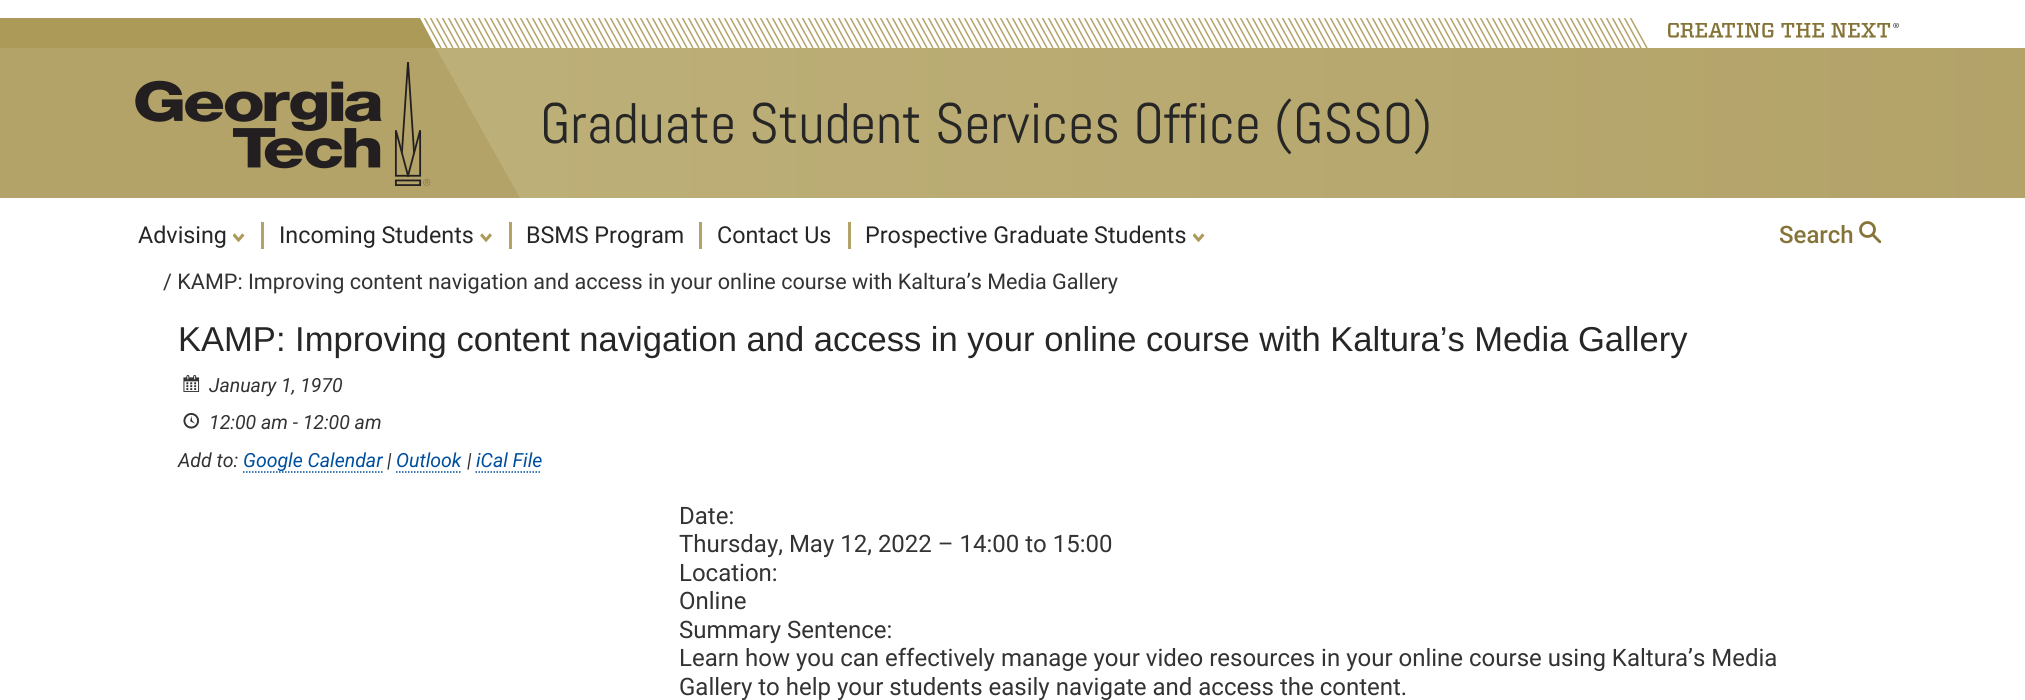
import math
import cairocffi as cairo

surface = cairo.ImageSurface(cairo.FORMAT_RGB24, 2025, 700)
ctx = cairo.Context(surface)
options = cairo.FontOptions()
options.set_hint_metrics(cairo.HINT_METRICS_OFF)
options.set_hint_style(cairo.HINT_STYLE_NONE)
ctx.set_font_options(options)
ctx.set_miter_limit(4)


def rgb(r, g, b):
    ctx.set_source_rgb(r / 255, g / 255, b / 255)


def face(family, size, italic, bold):
    ctx.select_font_face(family, cairo.FONT_SLANT_ITALIC if italic else cairo.FONT_SLANT_NORMAL, cairo.FONT_WEIGHT_BOLD if bold else cairo.FONT_WEIGHT_NORMAL)
    ctx.set_font_size(size)


def label(x, y, s):
    ctx.move_to(x, y)
    ctx.show_text(s)


def rect(x, y, w, h):
    ctx.rectangle(x, y, w, h)
    ctx.fill()


def image(path, x, y, w, h):
    ctx.save()
    ctx.set_source_surface(cairo.ImageSurface.create_from_png(path), x, y)
    ctx.rectangle(x, y, w, h)
    ctx.fill()
    ctx.restore()


rgb(255, 255, 255)
ctx.paint()
gradient = cairo.LinearGradient(2025, 108, 0, 108)
gradient.add_color_stop_rgba(0, 0.702, 0.639, 0.412, 1)
gradient.add_color_stop_rgba(1, 0.749, 0.702, 0.486, 1)
ctx.set_source(gradient)
rect(436, 48, 1589, 150)
rgb(172, 154, 88)
rect(0, 18, 120, 30)
image('image0.png', 420, 18, 1228, 30)
ctx.new_path()
ctx.move_to(120, 18)
ctx.line_to(120, 48)
ctx.line_to(436, 48)
ctx.line_to(420, 18)
ctx.close_path()
ctx.fill()
image('image1.png', 1668, 23, 231, 15)
rgb(179, 163, 105)
rect(0, 48, 420, 150)
ctx.new_path()
ctx.move_to(420, 48)
ctx.line_to(436, 48)
ctx.line_to(520, 198)
ctx.line_to(420, 198)
ctx.close_path()
ctx.fill()
image('image2.png', 135, 62, 296, 124)
face('Abel', 57, 0, 0)
rgb(38, 38, 38)
label(540, 143, 'Graduate Student Services Office (GSSO)')
face('Roboto', 23.3, 0, 0)
label(138, 243, 'Advising')
image('image3.png', 233, 233, 12, 10)
rgb(179, 163, 105)
rect(261, 222, 3, 27)
rgb(38, 38, 38)
label(279, 243, 'Incoming Students')
image('image4.png', 480, 233, 12, 10)
rgb(179, 163, 105)
rect(509, 222, 3, 27)
rgb(38, 38, 38)
label(526, 243, 'BSMS Program')
rgb(179, 163, 105)
rect(699, 222, 3, 27)
rgb(38, 38, 38)
label(717, 243, 'Contact Us')
rgb(179, 163, 105)
rect(848, 222, 3, 27)
rgb(38, 38, 38)
label(865, 243, 'Prospective Graduate Students')
image('image3.png', 1193, 233, 12, 10)
face('Roboto Medium', 24, 0, 0)
rgb(133, 116, 55)
label(1779, 243, 'Search')
ctx.new_path()
ctx.arc(1867.5, 229.5, 7, 0, 2 * math.pi)
rgb(134, 116, 55)
ctx.set_line_width(2.8)
ctx.stroke()
ctx.save()
ctx.rectangle(1859, 221, 22, 22)
ctx.clip()
ctx.new_path()
ctx.move_to(1872, 234)
ctx.line_to(1881, 243)
ctx.stroke()
ctx.restore()
face('Roboto', 21.6, 0, 0)
rgb(51, 51, 51)
label(163, 289, '/ KAMP: Improving content navigation and access in your online course with Kaltura’s Media Gallery')
face('Liberation Sans', 34.55, 0, 0)
rgb(38, 38, 38)
label(178, 351, 'KAMP: Improving content navigation and access in your online course with Kaltura’s Media Gallery')
image('image5.png', 183, 375, 17, 17)
face('Roboto', 19.5, 1, 0)
rgb(51, 51, 51)
label(209, 392, 'January 1, 1970')
image('image6.png', 183, 412, 17, 17)
label(209, 429, '12:00 am - 12:00 am')
label(178, 467, 'Add to:')
ctx.new_path()
ctx.move_to(243, 472)
ctx.line_to(382.5, 472)
rgb(0, 79, 159)
ctx.set_line_width(1.5)
ctx.set_dash([1.5, 1.5])
ctx.stroke()
label(243, 467, 'Google Calendar')
rgb(51, 51, 51)
label(387, 467, '|')
rgb(0, 79, 159)
label(396, 467, 'Outlook')
ctx.new_path()
ctx.move_to(396, 472)
ctx.line_to(462, 472)
ctx.stroke()
rgb(51, 51, 51)
label(467, 467, '|')
rgb(0, 79, 159)
label(476, 467, 'iCal File')
ctx.new_path()
ctx.move_to(475.5, 472)
ctx.line_to(541.5, 472)
ctx.stroke()
face('Roboto', 24, 0, 0)
rgb(51, 51, 51)
label(679, 524, 'Date:')
label(679, 552, 'Thursday, May 12, 2022 – 14:00 to 15:00')
label(679, 581, 'Location:')
label(679, 609, 'Online')
label(679, 638, 'Summary Sentence:')
label(679, 666, 'Learn how you can effectively manage your video resources in your online course using Kaltura’s Media')
label(679, 695, 'Gallery to help your students easily navigate and access the content.')
surface.write_to_png('render.png')
